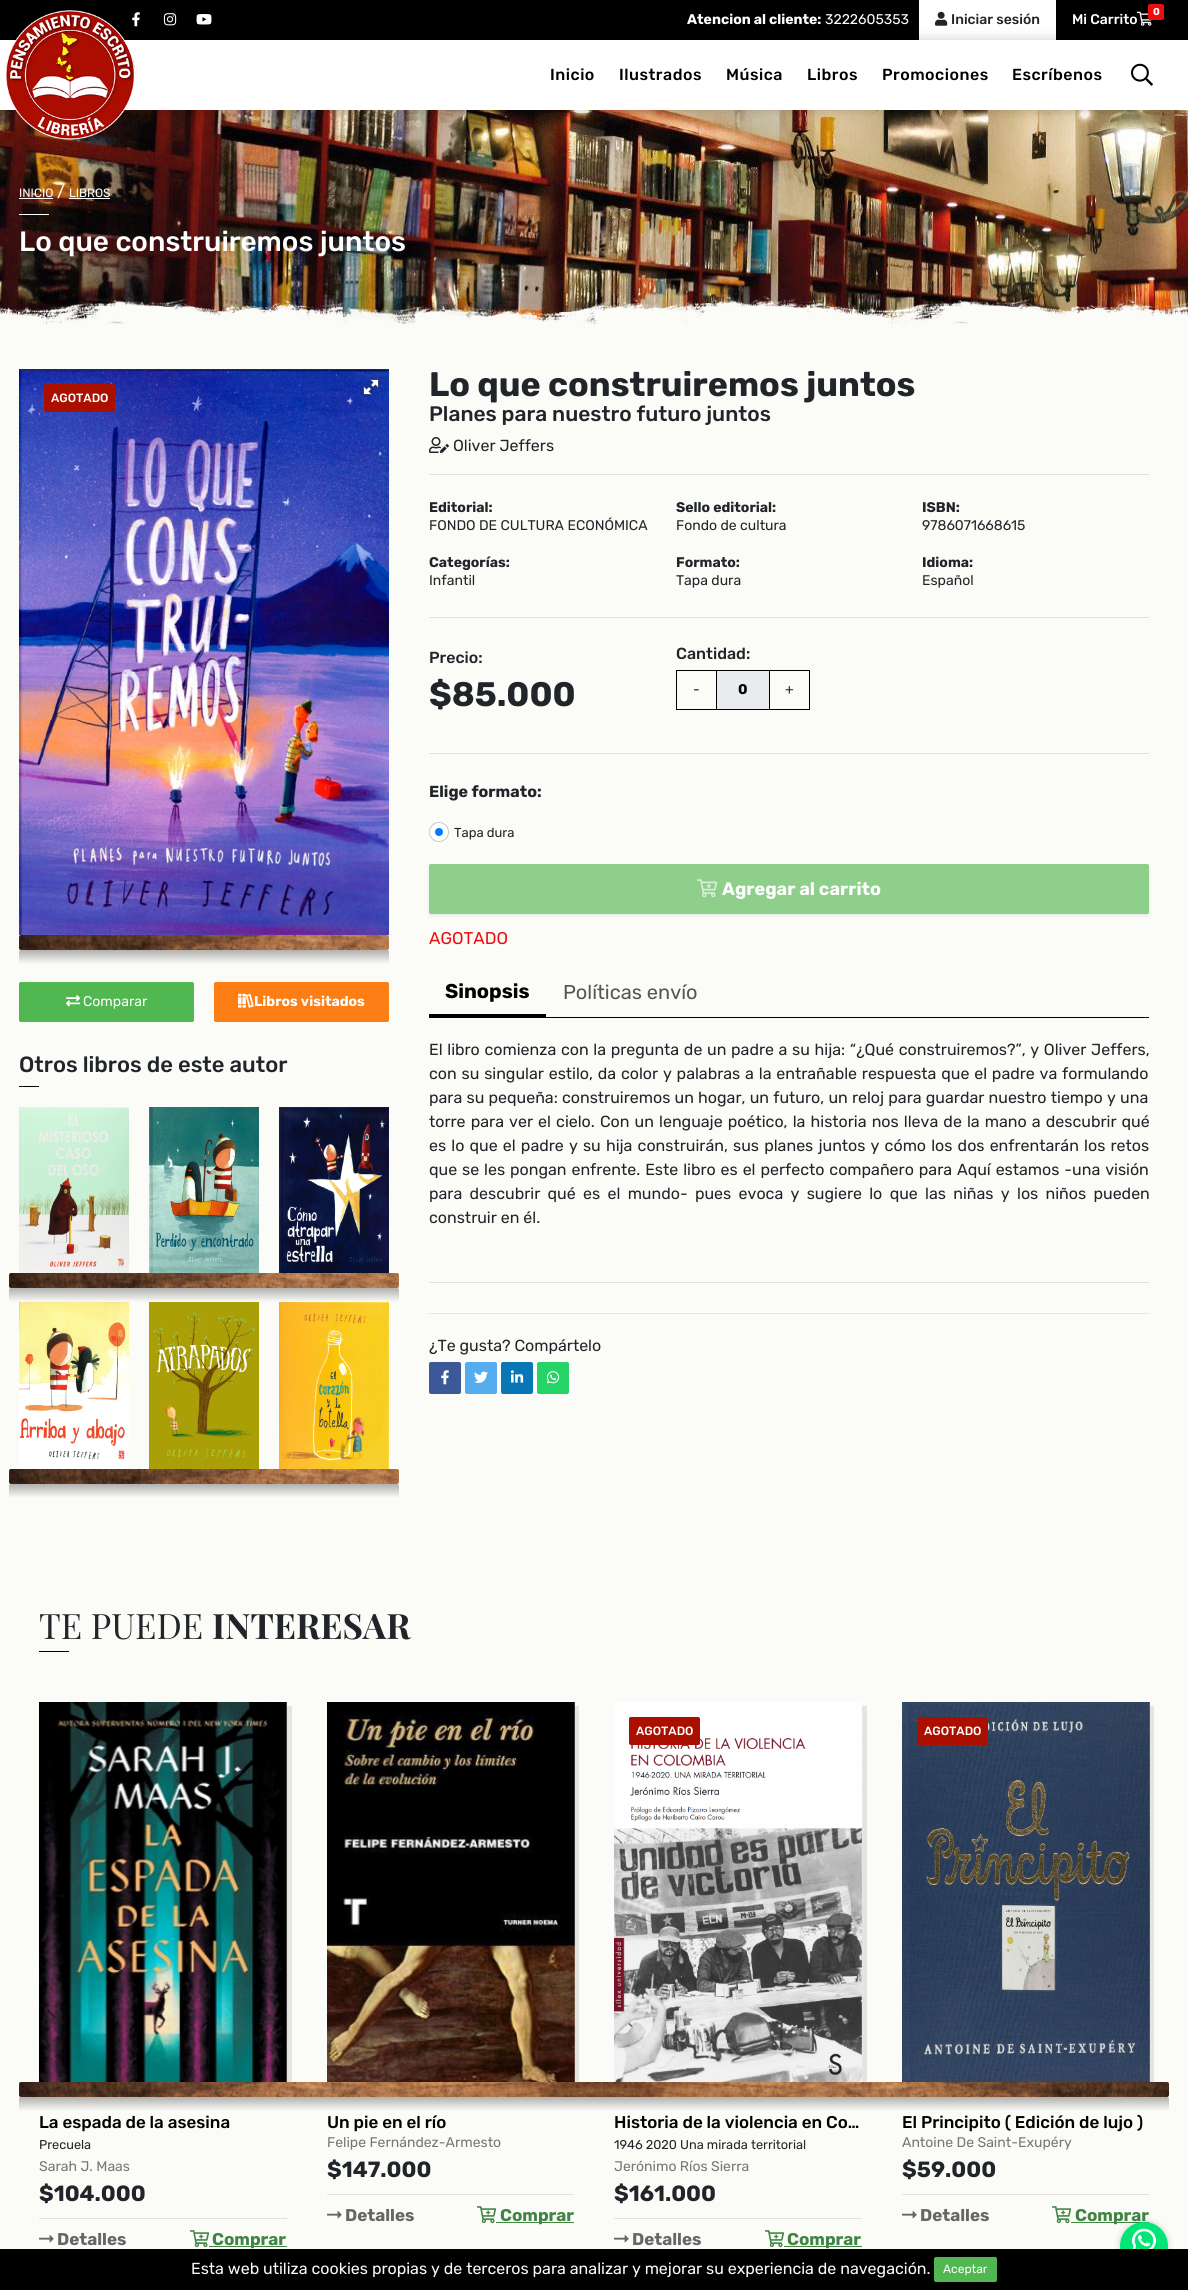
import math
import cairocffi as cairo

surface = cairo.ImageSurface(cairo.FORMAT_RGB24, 1188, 2290)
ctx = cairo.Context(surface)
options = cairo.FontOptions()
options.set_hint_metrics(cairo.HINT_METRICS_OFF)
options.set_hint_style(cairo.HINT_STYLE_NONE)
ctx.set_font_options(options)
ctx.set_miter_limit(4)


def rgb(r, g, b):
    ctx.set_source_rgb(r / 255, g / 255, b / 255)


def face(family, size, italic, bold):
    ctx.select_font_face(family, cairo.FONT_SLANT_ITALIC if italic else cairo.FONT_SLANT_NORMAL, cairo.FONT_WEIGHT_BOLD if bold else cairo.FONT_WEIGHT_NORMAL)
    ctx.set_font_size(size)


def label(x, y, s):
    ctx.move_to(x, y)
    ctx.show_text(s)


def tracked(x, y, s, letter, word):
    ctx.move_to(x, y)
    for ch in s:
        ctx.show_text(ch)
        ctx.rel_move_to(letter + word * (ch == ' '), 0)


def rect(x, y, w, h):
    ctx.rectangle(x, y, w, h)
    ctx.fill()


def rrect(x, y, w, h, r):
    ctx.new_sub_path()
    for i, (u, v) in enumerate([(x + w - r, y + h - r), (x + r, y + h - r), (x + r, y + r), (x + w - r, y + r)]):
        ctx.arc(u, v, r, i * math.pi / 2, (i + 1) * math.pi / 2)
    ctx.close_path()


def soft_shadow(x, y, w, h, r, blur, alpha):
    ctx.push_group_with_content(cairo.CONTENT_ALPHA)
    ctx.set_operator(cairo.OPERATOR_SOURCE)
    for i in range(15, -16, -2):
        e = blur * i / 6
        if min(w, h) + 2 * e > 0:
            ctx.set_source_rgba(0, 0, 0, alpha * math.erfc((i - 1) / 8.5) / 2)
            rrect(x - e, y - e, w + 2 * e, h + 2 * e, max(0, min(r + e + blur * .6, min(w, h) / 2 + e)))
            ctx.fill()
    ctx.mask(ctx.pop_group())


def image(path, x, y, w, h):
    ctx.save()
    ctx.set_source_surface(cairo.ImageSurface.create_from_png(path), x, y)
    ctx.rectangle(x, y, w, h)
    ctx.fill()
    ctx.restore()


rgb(251, 251, 248)
ctx.paint()
rgb(0, 0, 0)
rect(0, 0, 1188, 40)
rgb(255, 255, 255)
rect(919, 0, 137, 40)
image('image3.png', 935, 11, 13, 15)
image('image4.png', 1137, 11, 15, 15)
image('image7.png', 0, 110, 1188, 214)
rgb(0, 0, 0)
soft_shadow(0, 40, 1188, 70, 0, 6, 0.21)
rgb(255, 255, 255)
rect(0, 40, 1188, 70)
image('image5.png', 6, 10, 130, 130)
image('image0.png', 132, 12, 8, 15)
image('image1.png', 163, 13, 14, 13)
image('image2.png', 196, 14, 16, 11)
face('Rubik', 14, 0, 1)
label(687, 24, 'Atencion al cliente:')
face('Rubik', 14, 0, 0)
label(825, 24, '3222605353')
face('Rubik Medium', 14, 0, 0)
rgb(33, 37, 41)
label(951, 24, 'Iniciar sesión')
rgb(255, 255, 255)
label(1072, 24, 'Mi Carrito')
rgb(237, 13, 17)
rrect(1148, 4, 16, 16, 2)
ctx.fill()
face('Rubik', 10, 0, 1)
rgb(255, 255, 255)
label(1153, 15, '0')
face('Rubik Medium', 16, 0, 0)
rgb(0, 0, 0)
tracked(550, 80, 'Inicio', 0.5, 0)
tracked(619, 80, 'Ilustrados', 0.5, 0)
tracked(726, 80, 'Música', 0.5, 0)
tracked(807, 80, 'Libros', 0.5, 0)
tracked(882, 80, 'Promociones', 0.5, 0)
tracked(1012, 80, 'Escríbenos', 0.5, 0)
image('image6.png', 1131, 63, 22, 23)
face('Rubik', 12, 0, 0)
rgb(255, 255, 255)
label(19, 197, 'INICIO')
rect(19, 198, 34, 1)
face('Rubik', 16, 0, 0)
label(57, 197, '/')
face('Rubik', 12, 0, 0)
label(69, 197, 'LIBROS')
rect(69, 198, 41, 1)
rect(19, 214, 30, 1)
face('Rubik Medium', 28, 0, 0)
label(19, 251, 'Lo que construiremos juntos')
image('image8.png', 0, 294, 1188, 35)
image('image9.png', 19, 369, 370, 566)
image('image10.png', 360, 376, 22, 22)
rgb(171, 15, 0)
rrect(44, 384, 71, 28, 2)
ctx.fill()
face('Rubik Medium', 12, 0, 0)
rgb(255, 255, 255)
label(51, 402, 'AGOTADO')
image('image11.png', 19, 935, 370, 15)
gradient = cairo.LinearGradient(204, 964, 204, 950)
gradient.add_color_stop_rgba(0, 0.984, 0.984, 0.973, 1)
gradient.add_color_stop_rgba(1, 0.69, 0.69, 0.682, 1)
ctx.set_source(gradient)
rrect(19, 950, 370, 14, 2)
ctx.fill()
face('Rubik', 34, 0, 1)
rgb(33, 37, 41)
label(429, 396, 'Lo que construiremos juntos')
face('Rubik Medium', 21, 0, 0)
label(429, 421, 'Planes para nuestro futuro juntos')
image('image12.png', 429, 437, 20, 16)
face('Rubik', 16, 0, 0)
label(453, 451, 'Oliver Jeffers')
rgb(226, 226, 223)
rect(429, 474, 720, 1)
face('Rubik', 14, 0, 1)
rgb(33, 37, 41)
label(429, 512, 'Editorial:')
face('Rubik', 14, 0, 0)
label(429, 530, 'FONDO DE CULTURA ECONÓMICA')
face('Rubik', 14, 0, 1)
label(676, 512, 'Sello editorial:')
face('Rubik', 14, 0, 0)
label(676, 530, 'Fondo de cultura')
face('Rubik', 14, 0, 1)
label(922, 512, 'ISBN:')
face('Rubik', 14, 0, 0)
label(922, 530, '9786071668615')
face('Rubik', 14, 0, 1)
label(429, 567, 'Categorías:')
face('Rubik', 14, 0, 0)
label(429, 585, 'Infantil')
face('Rubik', 14, 0, 1)
label(676, 567, 'Formato:')
face('Rubik', 14, 0, 0)
label(676, 585, 'Tapa dura')
face('Rubik', 14, 0, 1)
label(922, 567, 'Idioma:')
face('Rubik', 14, 0, 0)
label(922, 585, 'Español')
rgb(226, 226, 223)
rect(429, 617, 720, 1)
face('Rubik Medium', 16, 0, 0)
rgb(33, 37, 41)
label(429, 663, 'Precio:')
face('Rubik', 34, 0, 1)
label(429, 706, '$85.000')
face('Rubik Medium', 16, 0, 0)
label(676, 659, 'Cantidad:')
rgb(0, 0, 0)
rect(676, 670, 40, 1)
rect(676, 709, 40, 1)
rect(676, 670, 1, 40)
face('Rubik', 14, 0, 0)
rgb(33, 37, 41)
label(693, 694, '-')
rgb(233, 236, 239)
ctx.rectangle(716.5, 670.5, 53, 39)
ctx.fill_preserve()
rgb(0, 0, 0)
ctx.set_line_width(1)
ctx.stroke()
face('Rubik', 14, 0, 1)
label(738, 694, '0')
rect(770, 670, 40, 1)
rect(809, 670, 1, 40)
rect(770, 709, 40, 1)
face('Rubik', 14, 0, 0)
rgb(33, 37, 41)
label(785, 694, '+')
rgb(226, 226, 223)
rect(429, 753, 720, 1)
face('Rubik', 16, 0, 1)
rgb(33, 37, 41)
label(429, 797, 'Elige formato:')
rgb(0, 122, 255)
ctx.new_path()
ctx.arc(439, 832, 7, 0, 2 * math.pi)
ctx.fill_preserve()
rgb(255, 255, 255)
ctx.set_line_width(6)
ctx.stroke()
ctx.arc(439, 832, 9.5, 0, 2 * math.pi)
rgb(200, 199, 204)
ctx.set_line_width(1)
ctx.stroke()
face('Rubik', 13, 0, 0)
rgb(33, 37, 41)
label(454, 837, 'Tapa dura')
rgb(88, 88, 87)
soft_shadow(429, 866, 720, 50, 2, 2, 0.12)
rgb(141, 207, 139)
rrect(429.5, 864.5, 719, 49, 1.5)
ctx.fill_preserve()
ctx.stroke()
image('image13.png', 697, 879, 21, 19)
face('Rubik', 18, 0, 1)
rgb(255, 255, 255)
label(722, 895, 'Agregar al carrito')
face('Rubik', 17, 0, 0)
rgb(237, 13, 17)
label(429, 944, 'AGOTADO')
rgb(81, 184, 81)
rrect(19.5, 982.5, 174, 39, 1.5)
ctx.fill_preserve()
ctx.stroke()
image('image14.png', 66, 995, 14, 12)
face('Rubik', 14, 0, 0)
rgb(255, 255, 255)
label(83, 1006, 'Comparar')
rgb(253, 126, 20)
rrect(214.5, 982.5, 174, 39, 1.5)
ctx.fill_preserve()
ctx.stroke()
image('image15.png', 238, 993, 16, 15)
face('Rubik', 14, 0, 1)
rgb(255, 255, 255)
label(254, 1006, 'Libros visitados')
face('Rubik Medium', 22, 0, 0)
rgb(33, 37, 41)
label(19, 1072, 'Otros libros de este autor')
rgb(0, 0, 0)
rect(19, 1086, 20, 1)
image('image16.png', 19, 1107, 110, 166)
image('image17.png', 149, 1107, 110, 166)
image('image18.png', 279, 1107, 110, 166)
image('image19.png', 9, 1273, 390, 15)
gradient = cairo.LinearGradient(204, 1302, 204, 1288)
gradient.add_color_stop_rgba(0, 0.984, 0.984, 0.973, 1)
gradient.add_color_stop_rgba(1, 0.69, 0.69, 0.682, 1)
ctx.set_source(gradient)
rrect(9, 1288, 390, 14, 2)
ctx.fill()
image('image20.png', 19, 1302, 110, 167)
image('image21.png', 149, 1302, 110, 167)
image('image22.png', 279, 1302, 110, 167)
image('image19.png', 9, 1469, 390, 15)
gradient = cairo.LinearGradient(204, 1498, 204, 1484)
gradient.add_color_stop_rgba(0, 0.984, 0.984, 0.973, 1)
gradient.add_color_stop_rgba(1, 0.69, 0.69, 0.682, 1)
ctx.set_source(gradient)
rrect(9, 1484, 390, 14, 2)
ctx.fill()
rgb(0, 0, 0)
rect(546, 1017, 603, 1)
rect(429, 1014, 117, 4)
face('Rubik', 20, 0, 1)
label(445, 998, 'Sinopsis')
face('Rubik', 20, 0, 0)
rgb(85, 85, 85)
label(563, 999, 'Políticas envío')
face('Rubik', 16, 0, 0)
rgb(33, 37, 41)
tracked(429, 1055, 'El libro comienza con la pregunta de un padre a su hija: “¿Qué construiremos?”, y Oliver Jeffers,', 0, 0.75)
tracked(429, 1079, 'con su singular estilo, da color y palabras a la entrañable respuesta que el padre va formulando', 0, 0.9)
tracked(429, 1103, 'para su pequeña: construiremos un hogar, un futuro, un reloj para guardar nuestro tiempo y una', 0, 0.3)
tracked(429, 1127, 'torre para ver el cielo. Con un lenguaje poético, la historia nos lleva de la mano a descubrir qué', 0, 1.2)
tracked(429, 1151, 'es lo que el padre y su hija construirán, sus planes juntos y cómo los dos enfrentarán los retos', 0, 1.25)
tracked(429, 1175, 'que se les pongan enfrente. Este libro es el perfecto compañero para Aquí estamos -una visión', 0, 1)
tracked(429, 1199, 'para descubrir qué es el mundo- pues evoca y sugiere lo que las niñas y los niños pueden', 0, 3.4)
label(429, 1223, 'construir en él.')
rgb(226, 226, 223)
rect(429, 1282, 720, 1)
rgb(230, 230, 230)
rect(429, 1313, 720, 1)
rgb(33, 37, 41)
label(429, 1351, '¿Te gusta? Compártelo')
rgb(59, 89, 152)
rrect(429, 1362, 32, 32, 2)
ctx.fill()
image('image23.png', 441, 1370, 8, 15)
rgb(85, 172, 238)
rrect(465, 1362, 32, 32, 2)
ctx.fill()
image('image24.png', 474, 1371, 14, 12)
rgb(9, 119, 181)
rrect(501, 1362, 32, 32, 2)
ctx.fill()
image('image25.png', 510, 1370, 14, 13)
rgb(37, 211, 102)
rrect(537, 1362, 32, 32, 2)
ctx.fill()
image('image26.png', 546, 1371, 14, 13)
face('Playfair Display', 35, 0, 0)
rgb(33, 37, 41)
label(39, 1639, 'TE PUEDE')
face('Playfair Display', 35, 0, 1)
label(212, 1639, 'INTERESAR')
rgb(0, 0, 0)
rect(39, 1651, 30, 1)
rgb(228, 228, 226)
ctx.new_path()
ctx.move_to(44, 2082)
ctx.line_to(44, 2086)
ctx.line_to(292, 2086)
ctx.line_to(292, 1706)
ctx.line_to(287, 1706)
ctx.line_to(287, 2082)
ctx.close_path()
ctx.fill()
image('image27.png', 39, 1702, 248, 380)
face('Rubik Medium', 17, 0, 0)
rgb(0, 0, 0)
label(39, 2128, 'La espada de la asesina')
face('Rubik', 12.75, 0, 0)
rgb(33, 37, 41)
label(39, 2149, 'Precuela')
face('Rubik', 14, 0, 0)
rgb(121, 118, 118)
label(39, 2171, 'Sarah J. Maas')
face('Rubik', 22, 0, 1)
rgb(33, 37, 41)
label(39, 2201, '$104.000')
rgb(226, 226, 223)
rect(39, 2218, 248, 1)
image('image28.png', 39, 2235, 15, 8)
face('Rubik', 17, 0, 1)
rgb(102, 102, 102)
label(57, 2245, 'Detalles')
image('image29.png', 190, 2230, 20, 18)
rgb(65, 133, 69)
rect(209, 2246, 78, 1)
label(212, 2245, 'Comprar')
rgb(228, 228, 226)
ctx.new_path()
ctx.move_to(332, 2082)
ctx.line_to(332, 2086)
ctx.line_to(579, 2086)
ctx.line_to(579, 1706)
ctx.line_to(574, 1706)
ctx.line_to(574, 2082)
ctx.close_path()
ctx.fill()
image('image30.png', 327, 1702, 248, 380)
face('Rubik Medium', 17, 0, 0)
rgb(0, 0, 0)
label(327, 2128, 'Un pie en el río')
face('Rubik', 14, 0, 0)
rgb(121, 118, 118)
label(327, 2147, 'Felipe Fernández-Armesto')
face('Rubik', 22, 0, 1)
rgb(33, 37, 41)
label(327, 2177, '$147.000')
rgb(226, 226, 223)
rect(327, 2194, 247, 1)
image('image28.png', 327, 2211, 15, 8)
face('Rubik', 17, 0, 1)
rgb(102, 102, 102)
label(345, 2221, 'Detalles')
image('image29.png', 477, 2206, 20, 18)
rgb(65, 133, 69)
rect(496, 2222, 78, 1)
label(500, 2221, 'Comprar')
rgb(228, 228, 226)
ctx.new_path()
ctx.move_to(619, 2082)
ctx.line_to(619, 2086)
ctx.line_to(867, 2086)
ctx.line_to(867, 1706)
ctx.line_to(862, 1706)
ctx.line_to(862, 2082)
ctx.close_path()
ctx.fill()
image('image31.png', 614, 1702, 248, 380)
rgb(171, 15, 0)
rrect(629, 1717, 71, 28, 2)
ctx.fill()
face('Rubik Medium', 12, 0, 0)
rgb(255, 255, 255)
label(636, 1735, 'AGOTADO')
face('Rubik Medium', 17, 0, 0)
rgb(0, 0, 0)
label(614, 2128, 'Historia de la violencia en Co…')
face('Rubik', 12.75, 0, 0)
rgb(33, 37, 41)
label(614, 2149, '1946 2020 Una mirada territorial')
face('Rubik', 14, 0, 0)
rgb(121, 118, 118)
label(614, 2171, 'Jerónimo Ríos Sierra')
face('Rubik', 22, 0, 1)
rgb(33, 37, 41)
label(614, 2201, '$161.000')
rgb(226, 226, 223)
rect(614, 2218, 248, 1)
image('image28.png', 614, 2235, 15, 8)
face('Rubik', 17, 0, 1)
rgb(102, 102, 102)
label(632, 2245, 'Detalles')
image('image29.png', 765, 2230, 20, 18)
rgb(65, 133, 69)
rect(784, 2246, 78, 1)
label(787, 2245, 'Comprar')
rgb(228, 228, 226)
ctx.new_path()
ctx.move_to(907, 2082)
ctx.line_to(907, 2086)
ctx.line_to(1154, 2086)
ctx.line_to(1154, 1706)
ctx.line_to(1149, 1706)
ctx.line_to(1149, 2082)
ctx.close_path()
ctx.fill()
image('image32.png', 902, 1702, 248, 380)
rgb(171, 15, 0)
rrect(917, 1717, 71, 28, 2)
ctx.fill()
face('Rubik Medium', 12, 0, 0)
rgb(255, 255, 255)
label(924, 1735, 'AGOTADO')
face('Rubik Medium', 17, 0, 0)
rgb(0, 0, 0)
label(902, 2128, 'El Principito ( Edición de lujo )')
face('Rubik', 14, 0, 0)
rgb(121, 118, 118)
label(902, 2147, 'Antoine De Saint-Exupéry')
face('Rubik', 22, 0, 1)
rgb(33, 37, 41)
label(902, 2177, '$59.000')
rgb(226, 226, 223)
rect(902, 2194, 247, 1)
image('image28.png', 902, 2211, 15, 8)
face('Rubik', 17, 0, 1)
rgb(102, 102, 102)
label(920, 2221, 'Detalles')
image('image29.png', 1052, 2206, 20, 18)
rgb(65, 133, 69)
rect(1071, 2222, 78, 1)
label(1075, 2221, 'Comprar')
image('image33.png', 19, 2082, 1150, 15)
gradient = cairo.LinearGradient(594, 2111, 594, 2097)
gradient.add_color_stop_rgba(0, 0.984, 0.984, 0.973, 1)
gradient.add_color_stop_rgba(1, 0.69, 0.69, 0.682, 1)
ctx.set_source(gradient)
rrect(19, 2097, 1150, 14, 2)
ctx.fill()
rgb(0, 0, 0)
soft_shadow(1120, 2222, 48, 48, 24, 3, 0.2)
rgb(0, 0, 0)
rect(0, 2249, 1188, 41)
face('Rubik', 16, 0, 0)
rgb(248, 249, 250)
label(191, 2274, 'Esta web utiliza cookies propias y de terceros para analizar y mejorar su experiencia de navegación.')
rgb(81, 184, 81)
rrect(934.5, 2257.5, 62, 24, 1.5)
ctx.fill_preserve()
ctx.stroke()
face('Rubik', 12, 0, 0)
rgb(255, 255, 255)
label(943, 2273, 'Aceptar')
image('image34.png', 1120, 2222, 48, 27)
surface.write_to_png('render.png')
